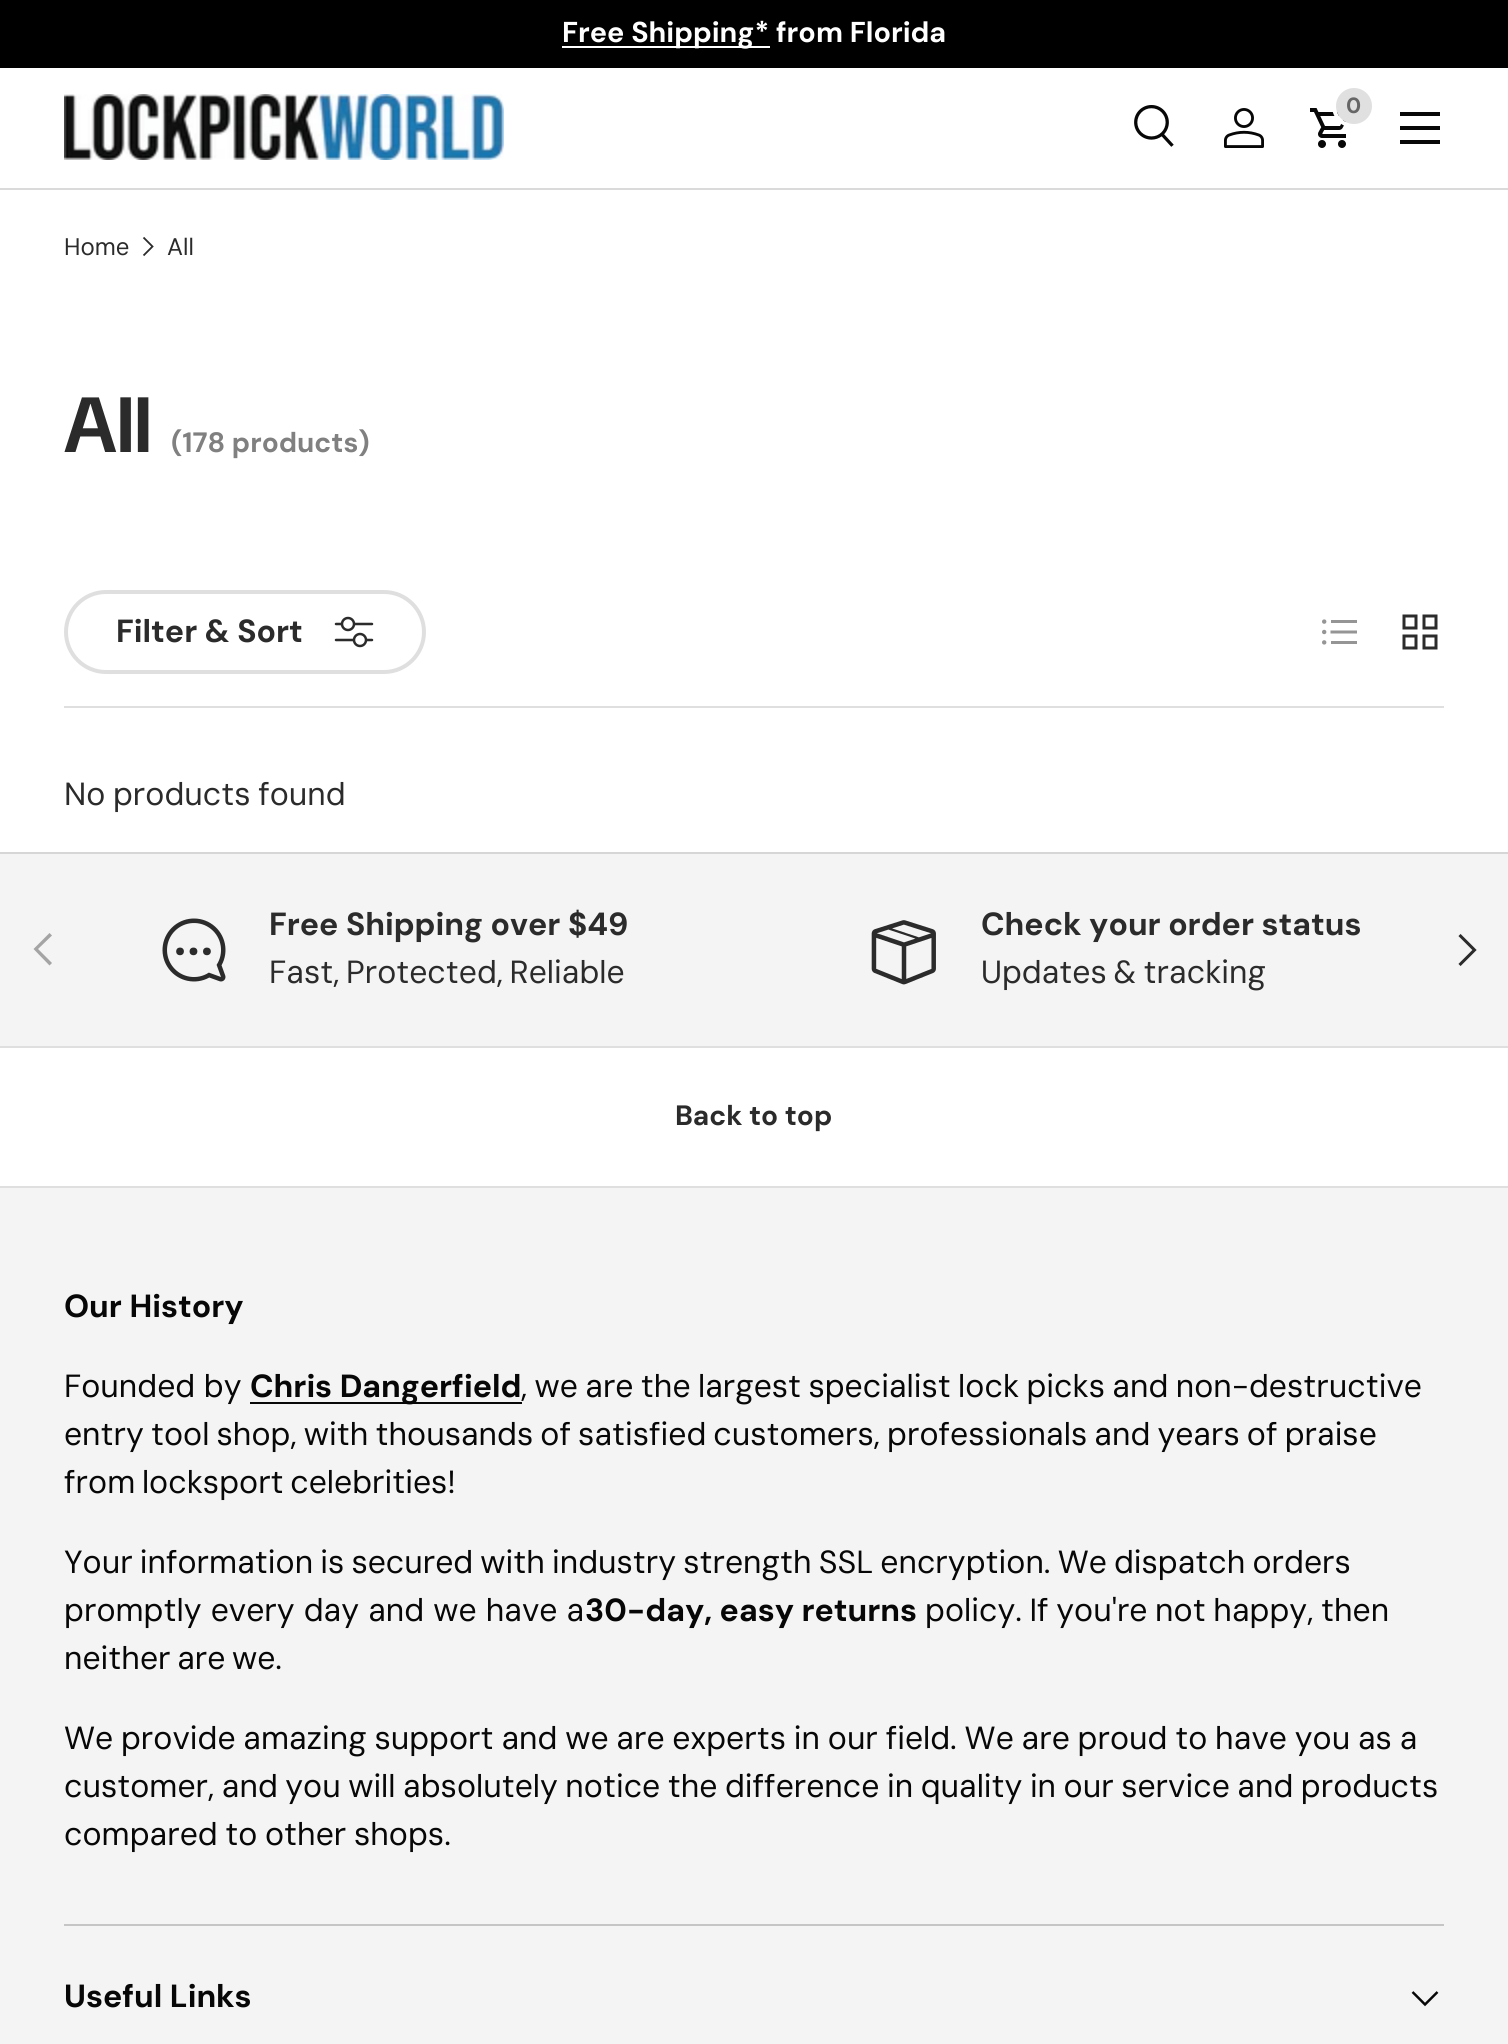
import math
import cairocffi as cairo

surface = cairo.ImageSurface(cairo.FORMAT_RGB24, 1508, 2044)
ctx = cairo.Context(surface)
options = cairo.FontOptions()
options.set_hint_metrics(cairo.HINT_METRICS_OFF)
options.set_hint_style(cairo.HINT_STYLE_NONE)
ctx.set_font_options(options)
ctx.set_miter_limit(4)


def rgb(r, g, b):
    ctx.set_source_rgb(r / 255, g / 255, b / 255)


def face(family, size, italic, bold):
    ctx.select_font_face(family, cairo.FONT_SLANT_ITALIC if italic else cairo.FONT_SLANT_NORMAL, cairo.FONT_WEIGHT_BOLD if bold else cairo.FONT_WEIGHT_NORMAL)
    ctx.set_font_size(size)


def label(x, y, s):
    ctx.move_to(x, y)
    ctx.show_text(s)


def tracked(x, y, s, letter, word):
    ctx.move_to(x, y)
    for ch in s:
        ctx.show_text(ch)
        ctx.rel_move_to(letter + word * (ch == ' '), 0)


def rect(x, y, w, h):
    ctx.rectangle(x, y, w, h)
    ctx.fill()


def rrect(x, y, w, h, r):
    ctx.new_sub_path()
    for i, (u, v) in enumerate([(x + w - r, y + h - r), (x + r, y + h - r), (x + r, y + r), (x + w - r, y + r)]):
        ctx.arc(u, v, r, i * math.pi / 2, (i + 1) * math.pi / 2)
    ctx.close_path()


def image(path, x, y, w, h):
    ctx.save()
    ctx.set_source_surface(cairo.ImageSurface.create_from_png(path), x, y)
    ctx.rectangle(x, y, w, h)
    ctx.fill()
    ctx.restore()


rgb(255, 255, 255)
ctx.paint()
rgb(0, 0, 0)
rect(0, 0, 1508, 68)
rgb(255, 255, 255)
rect(562, 46, 208, 2)
face('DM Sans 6', 28.75, 0, 1)
label(562, 42, 'Free Shipping* from Florida')
rgb(218, 218, 218)
rect(0, 188, 1508, 2)
image('image0.png', 64, 94, 440, 66)
image('image1.png', 1134, 105, 40, 42)
image('image2.png', 1224, 108, 40, 40)
image('image3.png', 1310, 108, 36, 40)
ctx.arc(1354, 106, 20, 0, 2 * math.pi)
rgb(255, 255, 255)
ctx.set_line_width(4)
ctx.stroke()
rgb(224, 224, 224)
ctx.arc(1354, 106, 18, 0, 2 * math.pi)
ctx.fill()
face('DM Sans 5', 22, 0, 1)
rgb(102, 102, 102)
label(1346, 113, '0')
rgb(7, 7, 7)
rect(1400, 112, 40, 4)
rect(1400, 140, 40, 4)
rect(1400, 126, 40, 4)
face('DM Sans', 24, 0, 0)
rgb(42, 43, 42)
label(64, 255, 'Home')
ctx.new_path()
ctx.move_to(143.5, 237.5)
ctx.line_to(152.5, 246.5)
ctx.line_to(143.5, 255.5)
ctx.set_line_width(1.8)
ctx.stroke()
label(167, 255, 'All')
face('DM Sans', 78, 0, 1)
label(64, 452, 'All')
face('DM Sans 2', 28, 0, 1)
rgb(127, 128, 127)
label(171, 452, '(178 products)')
rgb(223, 223, 223)
rect(64, 706, 1380, 2)
rrect(66, 592, 358, 80, 40)
ctx.set_line_width(4)
ctx.stroke()
face('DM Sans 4', 32, 0, 1)
rgb(42, 43, 42)
label(116, 642, 'Filter & Sort')
ctx.new_path()
ctx.move_to(336, 624)
ctx.line_to(372, 624)
ctx.move_to(336, 640)
ctx.line_to(372, 640)
ctx.set_line_width(2.5)
ctx.set_line_cap(cairo.LINE_CAP_ROUND)
ctx.set_line_join(cairo.LINE_JOIN_ROUND)
ctx.stroke()
rgb(255, 255, 255)
ctx.arc(348, 624, 6, 0, 2 * math.pi)
ctx.fill_preserve()
rgb(42, 43, 42)
ctx.set_line_cap(cairo.LINE_CAP_BUTT)
ctx.set_line_join(cairo.LINE_JOIN_MITER)
ctx.stroke()
rgb(255, 255, 255)
ctx.arc(360, 640, 6, 0, 2 * math.pi)
ctx.fill_preserve()
rgb(42, 43, 42)
ctx.stroke()
rgb(149, 149, 149)
ctx.arc(1324.2, 621.6, 2.2, 0, 2 * math.pi)
ctx.fill()
rect(1331, 620, 26, 3)
ctx.arc(1324.2, 632, 2.2, 0, 2 * math.pi)
ctx.fill()
ctx.new_path()
ctx.move_to(1330.5, 632)
ctx.line_to(1357, 632)
ctx.set_line_width(3)
ctx.stroke()
ctx.arc(1324.2, 642.4, 2.2, 0, 2 * math.pi)
ctx.fill()
rect(1331, 641, 26, 3)
ctx.new_path()
ctx.move_to(1404, 616)
ctx.line_to(1416, 616)
ctx.line_to(1416, 628)
ctx.line_to(1404, 628)
ctx.close_path()
ctx.move_to(1424, 616)
ctx.line_to(1436, 616)
ctx.line_to(1436, 628)
ctx.line_to(1424, 628)
ctx.close_path()
ctx.move_to(1404, 636)
ctx.line_to(1416, 636)
ctx.line_to(1416, 648)
ctx.line_to(1404, 648)
ctx.close_path()
ctx.move_to(1424, 636)
ctx.line_to(1436, 636)
ctx.line_to(1436, 648)
ctx.line_to(1424, 648)
ctx.close_path()
rgb(42, 43, 42)
ctx.stroke()
face('DM Sans', 32, 0, 0)
tracked(64, 805, 'No products found', 0, -1)
rgb(244, 244, 244)
rect(0, 854, 1508, 192)
rgb(214, 214, 214)
rect(0, 852, 1508, 2)
image('image4.png', 162, 918, 64, 64)
face('DM Sans 4', 32, 0, 1)
rgb(42, 43, 42)
label(269, 935, 'Free Shipping over $49')
face('DM Sans', 32, 0, 0)
tracked(269, 983, 'Fast, Protected, Reliable', 0, -2)
image('image5.png', 871, 920, 65, 65)
face('DM Sans 4', 32, 0, 1)
label(981, 935, 'Check your order status')
face('DM Sans', 32, 0, 0)
tracked(981, 983, 'Updates & tracking', 0, -2)
rgb(163, 164, 163)
ctx.new_path()
ctx.move_to(33.5, 949)
ctx.line_to(49.5, 933)
ctx.line_to(52, 935.5)
ctx.line_to(38, 949)
ctx.line_to(52, 963)
ctx.line_to(49.5, 965.5)
ctx.close_path()
ctx.fill()
ctx.new_path()
ctx.move_to(1459.5, 935)
ctx.line_to(1474.5, 950)
ctx.line_to(1459.5, 965)
rgb(42, 43, 42)
ctx.stroke()
rgb(223, 223, 223)
rect(0, 1046, 1508, 2)
rect(0, 1186, 1508, 2)
face('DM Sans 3', 28, 0, 1)
rgb(42, 43, 42)
label(675, 1125, 'Back to top')
rgb(244, 244, 244)
rect(0, 1188, 1508, 856)
face('DM Sans 4', 32, 0, 1)
rgb(7, 7, 7)
label(64, 1317, 'Our History')
face('DM Sans', 32, 0, 0)
label(64, 1397, 'Founded by')
rect(250, 1402, 272, 2)
face('DM Sans 4', 32, 0, 1)
label(250, 1397, 'Chris Dangerfield')
face('DM Sans', 32, 0, 0)
tracked(521, 1397, ', we are the largest specialist lock picks and non-destructive', 0, -1.25)
tracked(64, 1445, 'entry tool shop, with thousands of satisfied customers, professionals and years of praise', 0, -1.5)
tracked(64, 1493, 'from locksport celebrities!', 0, -2)
tracked(64, 1573, 'Your information is secured with industry strength SSL encryption. We dispatch orders', 0, -1.5)
tracked(64, 1621, 'promptly every day and we have a', 0, 0.5)
face('DM Sans 4', 32, 0, 1)
label(585, 1621, '30-day, easy returns')
face('DM Sans', 32, 0, 0)
tracked(925, 1621, 'policy. If you\'re not happy, then', 0, -1)
tracked(64, 1669, 'neither are we.', 0, -2)
tracked(64, 1749, 'We provide amazing support and we are experts in our field. We are proud to have you as a', 0, -0.8)
tracked(64, 1797, 'customer, and you will absolutely notice the difference in quality in our service and products', 0, -1.1)
tracked(64, 1845, 'compared to other shops.', 0, -1)
rgb(197, 197, 197)
rect(64, 1924, 1380, 2)
face('DM Sans 4', 32, 0, 1)
rgb(7, 7, 7)
label(64, 2007, 'Useful Links')
ctx.new_path()
ctx.move_to(1437.5, 1992)
ctx.line_to(1425, 2004.5)
ctx.line_to(1412.5, 1992)
ctx.set_line_width(2.5)
ctx.stroke()
surface.write_to_png('render.png')
